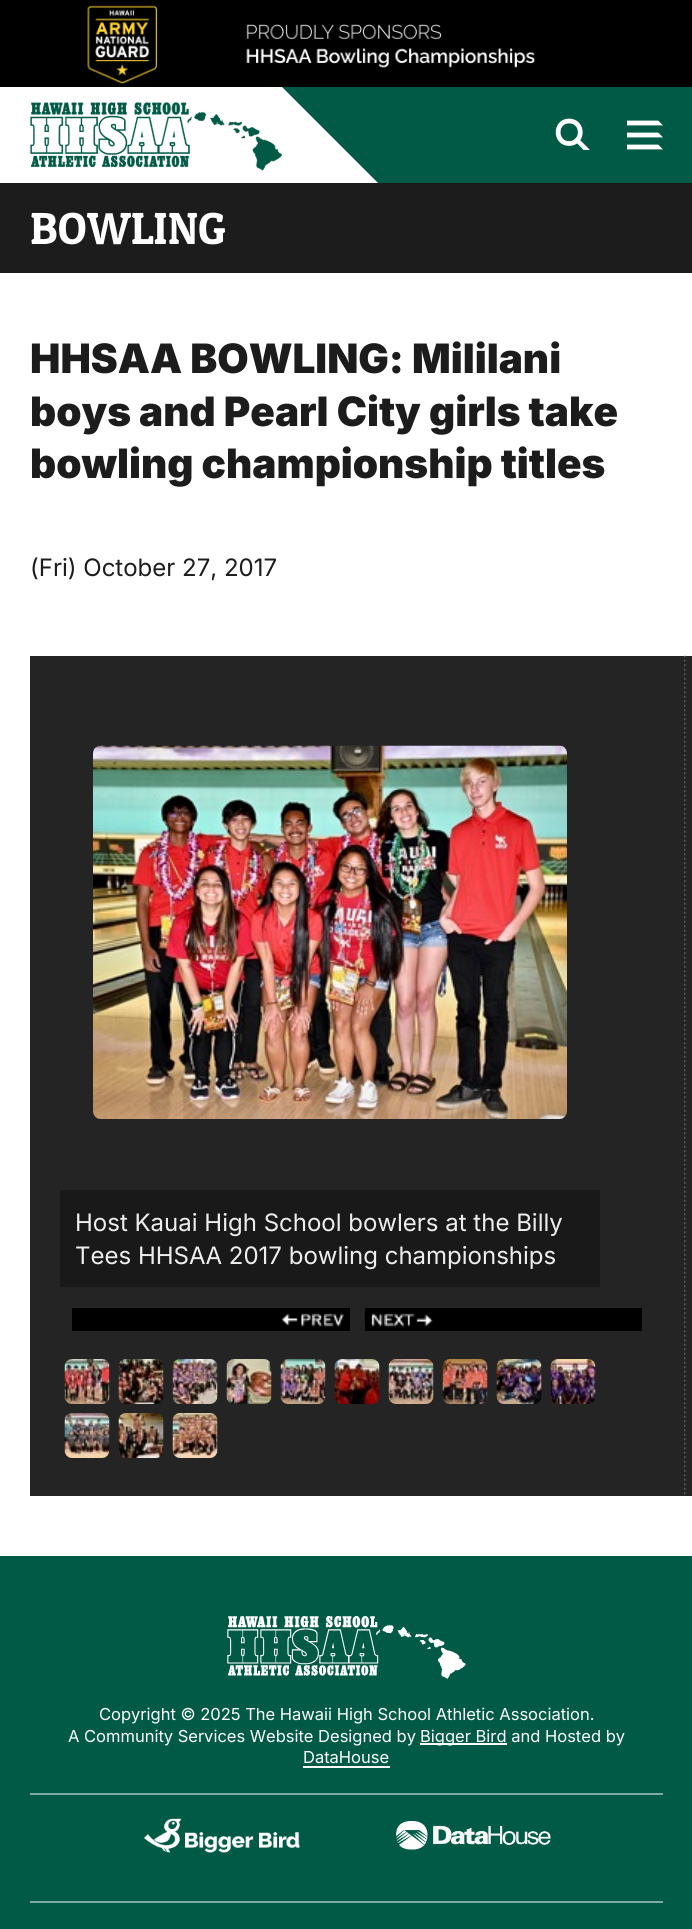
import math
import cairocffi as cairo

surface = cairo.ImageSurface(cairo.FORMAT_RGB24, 692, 1929)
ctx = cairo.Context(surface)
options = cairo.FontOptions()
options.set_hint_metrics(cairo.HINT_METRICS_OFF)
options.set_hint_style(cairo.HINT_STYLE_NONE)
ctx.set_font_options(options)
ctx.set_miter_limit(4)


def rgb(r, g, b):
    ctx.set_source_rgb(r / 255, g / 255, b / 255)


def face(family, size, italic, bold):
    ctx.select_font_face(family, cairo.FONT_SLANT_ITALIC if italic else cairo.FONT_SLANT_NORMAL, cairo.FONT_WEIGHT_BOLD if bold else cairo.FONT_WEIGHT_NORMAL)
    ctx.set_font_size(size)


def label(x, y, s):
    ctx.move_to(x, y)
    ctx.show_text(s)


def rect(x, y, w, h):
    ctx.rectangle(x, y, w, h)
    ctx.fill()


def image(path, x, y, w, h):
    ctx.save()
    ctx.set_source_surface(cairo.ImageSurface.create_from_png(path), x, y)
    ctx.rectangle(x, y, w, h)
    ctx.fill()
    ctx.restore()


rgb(255, 255, 255)
ctx.paint()
image('image0.png', 0, 0, 692, 87)
rgb(0, 90, 70)
rect(282, 87, 410, 96)
rgb(255, 255, 255)
ctx.new_path()
ctx.move_to(0, 87)
ctx.line_to(0, 183)
ctx.line_to(378, 183)
ctx.line_to(282, 87)
ctx.close_path()
ctx.fill()
image('image1.png', 30, 101, 252, 70)
ctx.new_path()
ctx.move_to(569, 143.5)
ctx.curve_to(584, 143.5, 584, 121, 569, 121)
ctx.curve_to(554.5, 121, 554.5, 143.5, 569, 143.5)
ctx.close_path()
ctx.set_line_width(4.8)
ctx.set_line_cap(cairo.LINE_CAP_ROUND)
ctx.set_line_join(cairo.LINE_JOIN_ROUND)
ctx.stroke()
ctx.set_fill_rule(cairo.FILL_RULE_EVEN_ODD)
ctx.new_path()
ctx.move_to(577, 137)
ctx.line_to(590, 150)
ctx.line_to(583.5, 150)
ctx.line_to(574, 140)
ctx.close_path()
ctx.fill()
image('image2.png', 627, 120, 36, 30)
rgb(28, 28, 28)
rect(0, 183, 692, 90)
face('Patua One', 45, 0, 0)
rgb(255, 255, 255)
label(30, 244, 'BOWLING')
face('Inter Black', 40.5, 0, 0)
rgb(28, 28, 28)
label(30, 373, 'HHSAA BOWLING: Mililani')
label(30, 426, 'boys and Pearl City girls take')
label(30, 478, 'bowling championship titles')
face('Inter', 24, 0, 0)
label(30, 576, '(Fri) October 27, 2017')
rgb(36, 36, 36)
rect(30, 656, 662, 840)
image('image3.png', 93, 745, 474, 374)
rgb(25, 25, 25)
rect(60, 1190, 540, 97)
rgb(238, 238, 238)
label(75, 1231, 'Host Kauai High School bowlers at the Billy')
label(75, 1264, 'Tees HHSAA 2017 bowling championships')
rgb(0, 0, 0)
rect(72, 1308, 278, 23)
image('image4.png', 281, 1313, 63, 14)
rect(365, 1308, 277, 23)
image('image5.png', 364, 1313, 69, 14)
image('image6.png', 64, 1359, 46, 45)
image('image7.png', 118, 1359, 46, 45)
image('image8.png', 172, 1359, 46, 45)
image('image9.png', 226, 1359, 46, 45)
image('image10.png', 280, 1359, 46, 45)
image('image11.png', 334, 1359, 46, 45)
image('image12.png', 388, 1359, 46, 45)
image('image13.png', 442, 1359, 46, 45)
image('image14.png', 496, 1359, 46, 45)
image('image15.png', 550, 1359, 46, 45)
image('image16.png', 64, 1413, 46, 45)
image('image17.png', 118, 1413, 46, 45)
image('image18.png', 172, 1413, 46, 45)
image('image19.png', 684, 655, 2, 840)
rgb(0, 90, 70)
rect(0, 1556, 692, 373)
image('image20.png', 227, 1616, 239, 63)
face('Inter', 16.5, 0, 0)
rgb(255, 255, 255)
label(99, 1720, 'Copyright © 2025 The Hawaii High School Athletic Association.')
label(68, 1742, 'A Community Services Website Designed by')
rect(420, 1743, 87, 2)
label(420, 1742, 'Bigger Bird and Hosted by')
label(303, 1763, 'DataHouse')
rect(303, 1766, 87, 2)
rgb(128, 173, 163)
rect(30, 1793, 633, 2)
image('image21.png', 144, 1818, 156, 35)
image('image22.png', 396, 1821, 155, 29)
rect(30, 1901, 633, 2)
surface.write_to_png('render.png')
